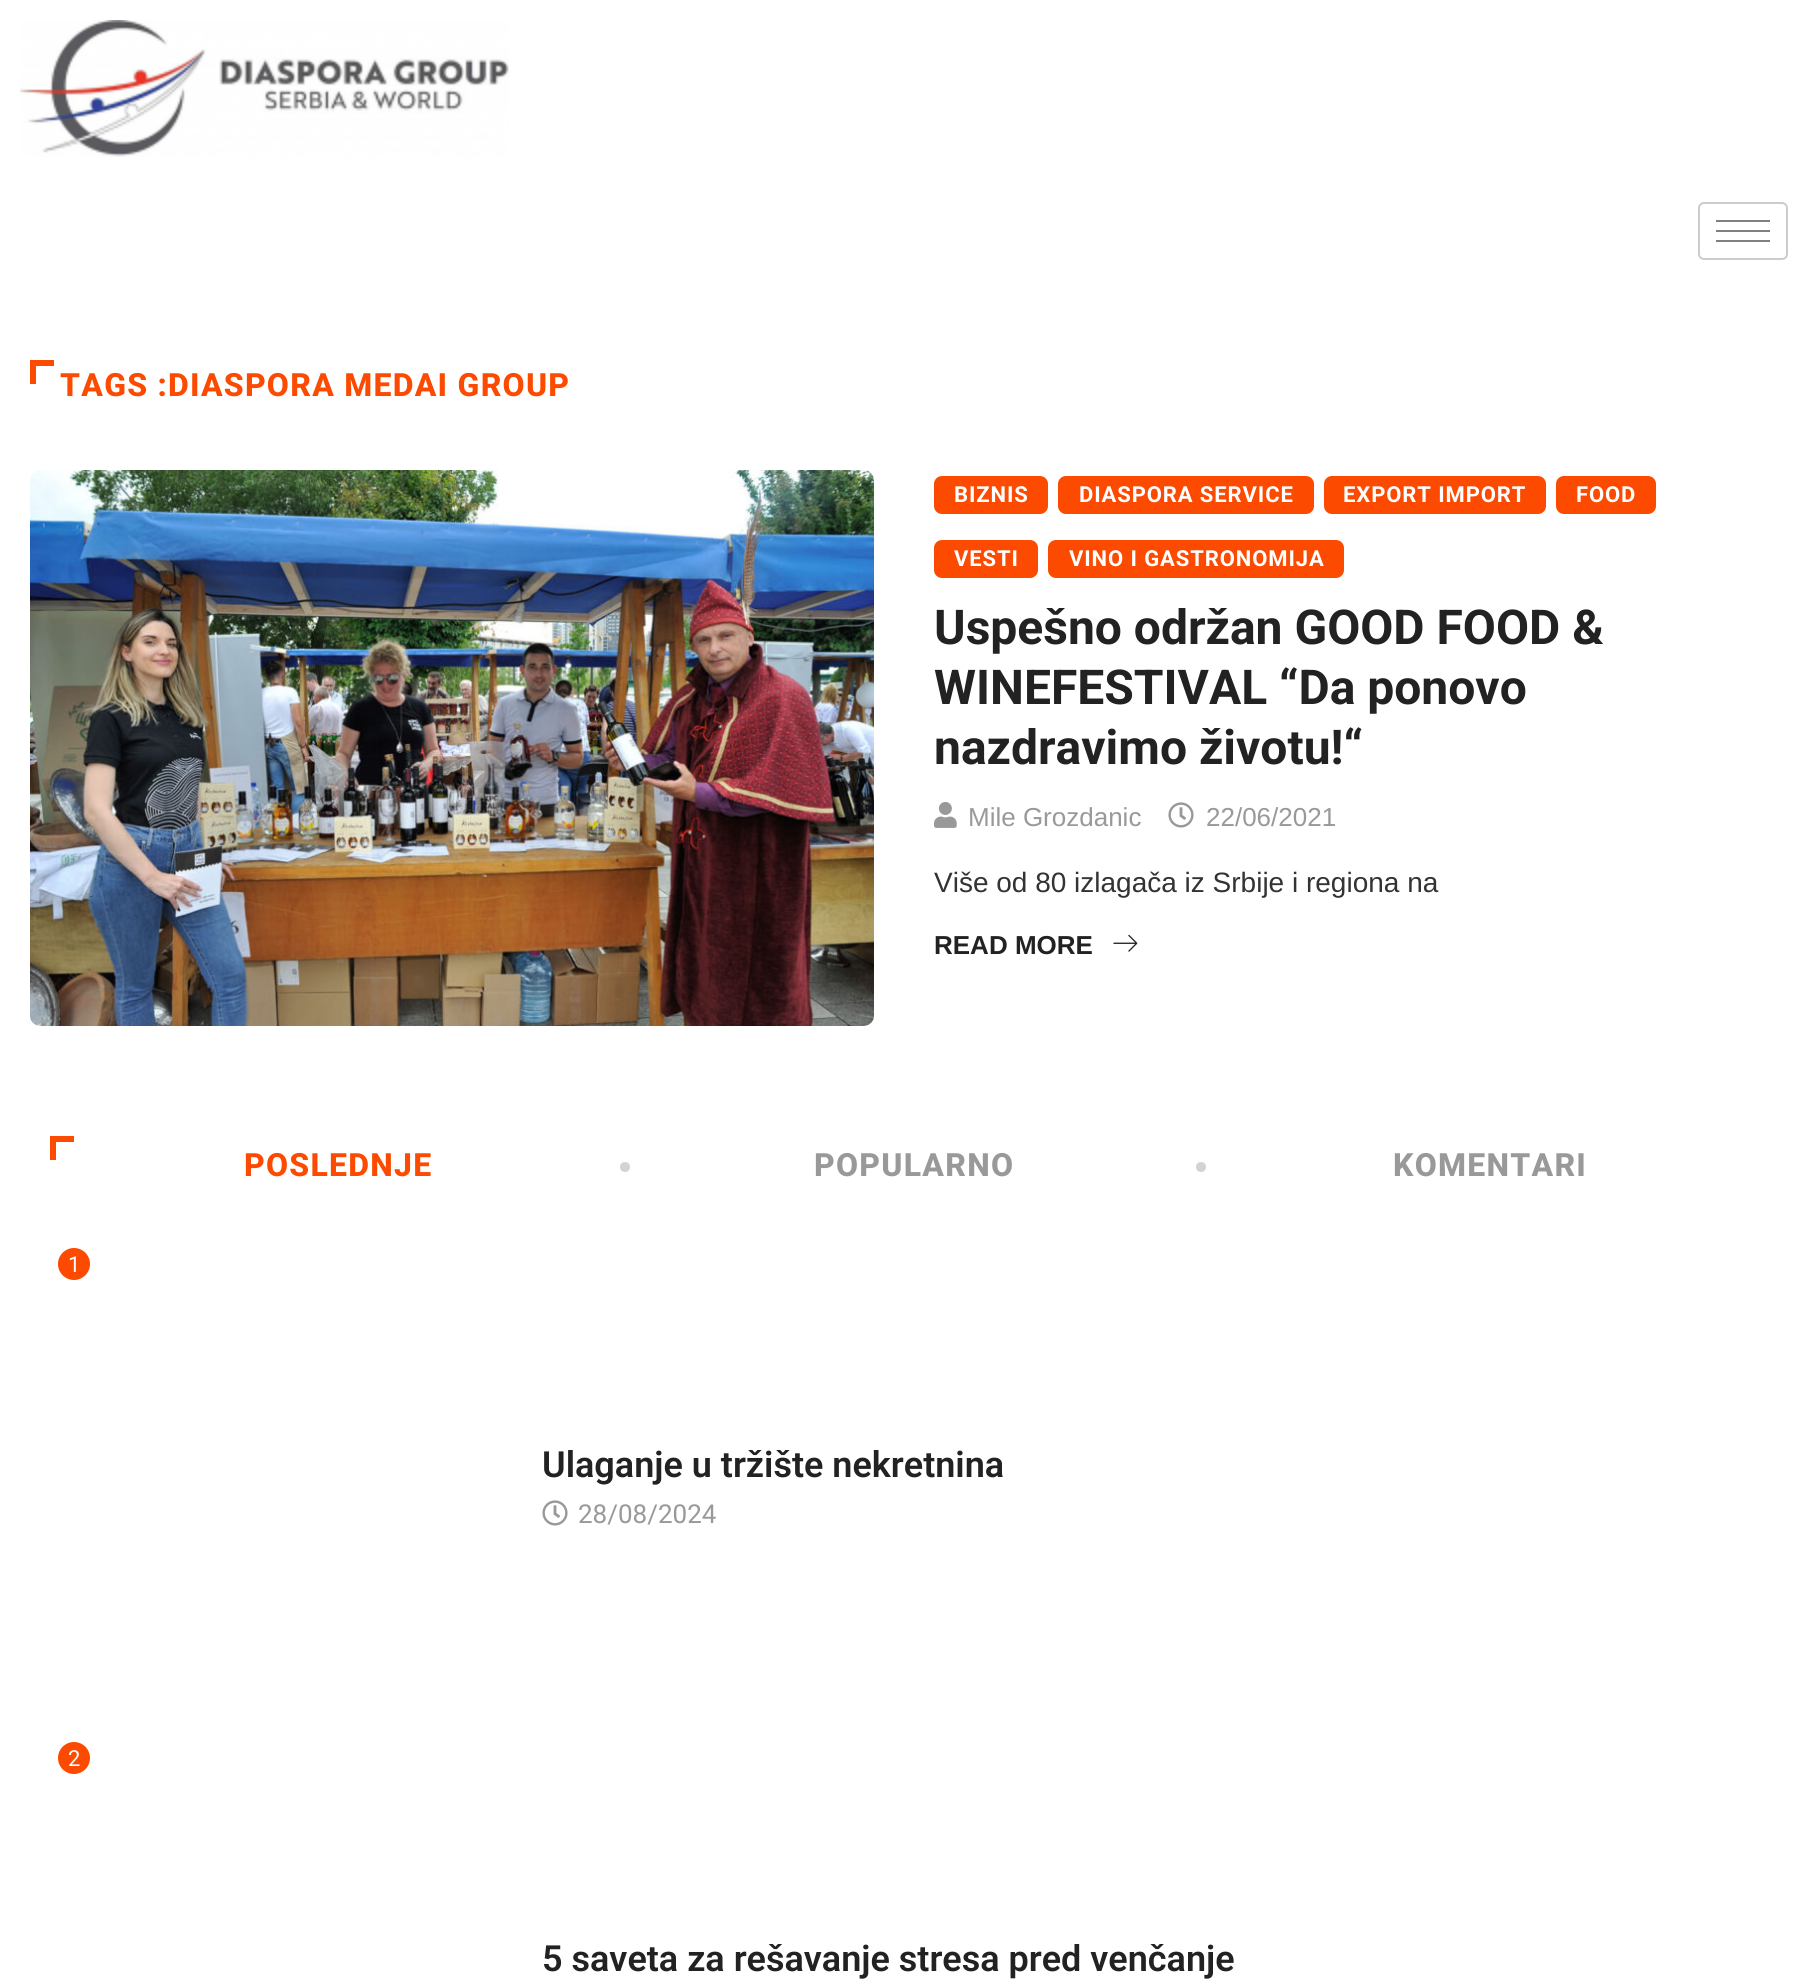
import math
import cairocffi as cairo

surface = cairo.ImageSurface(cairo.FORMAT_RGB24, 1807, 1984)
ctx = cairo.Context(surface)
options = cairo.FontOptions()
options.set_hint_metrics(cairo.HINT_METRICS_OFF)
options.set_hint_style(cairo.HINT_STYLE_NONE)
ctx.set_font_options(options)
ctx.set_miter_limit(4)


def rgb(r, g, b):
    ctx.set_source_rgb(r / 255, g / 255, b / 255)


def face(family, size, italic, bold):
    ctx.select_font_face(family, cairo.FONT_SLANT_ITALIC if italic else cairo.FONT_SLANT_NORMAL, cairo.FONT_WEIGHT_BOLD if bold else cairo.FONT_WEIGHT_NORMAL)
    ctx.set_font_size(size)


def label(x, y, s):
    ctx.move_to(x, y)
    ctx.show_text(s)


def tracked(x, y, s, letter, word):
    ctx.move_to(x, y)
    for ch in s:
        ctx.show_text(ch)
        ctx.rel_move_to(letter + word * (ch == ' '), 0)


def rect(x, y, w, h):
    ctx.rectangle(x, y, w, h)
    ctx.fill()


def rrect(x, y, w, h, r):
    ctx.new_sub_path()
    for i, (u, v) in enumerate([(x + w - r, y + h - r), (x + r, y + h - r), (x + r, y + r), (x + w - r, y + r)]):
        ctx.arc(u, v, r, i * math.pi / 2, (i + 1) * math.pi / 2)
    ctx.close_path()


def image(path, x, y, w, h):
    ctx.save()
    ctx.set_source_surface(cairo.ImageSurface.create_from_png(path), x, y)
    ctx.rectangle(x, y, w, h)
    ctx.fill()
    ctx.restore()


rgb(255, 255, 255)
ctx.paint()
image('image0.png', 20, 20, 489, 137)
rrect(1699, 203, 88, 56, 5)
rgb(204, 204, 204)
ctx.stroke()
rgb(128, 128, 128)
rect(1716, 220, 54, 2)
rect(1716, 230, 54, 2)
rect(1716, 240, 54, 2)
rgb(252, 74, 0)
rect(30, 360, 6, 24)
rect(30, 360, 24, 6)
face('Roboto ExtraBold', 32, 0, 0)
tracked(60, 396, 'TAGS :DIASPORA MEDAI GROUP', 1.25, 0)
image('image1.png', 30, 470, 844, 556)
rrect(934, 476, 114, 38, 8)
ctx.fill()
face('Roboto', 22, 0, 1)
rgb(255, 255, 255)
tracked(954, 502, 'BIZNIS', 0.9, 0)
rgb(252, 74, 0)
rrect(1058, 476, 256, 38, 8)
ctx.fill()
rgb(255, 255, 255)
tracked(1079, 502, 'DIASPORA SERVICE', 0.9, 0)
rgb(252, 74, 0)
rrect(1324, 476, 222, 38, 8)
ctx.fill()
rgb(255, 255, 255)
tracked(1343, 502, 'EXPORT IMPORT', 0.9, 0)
rgb(252, 74, 0)
rrect(1556, 476, 100, 38, 8)
ctx.fill()
rgb(255, 255, 255)
tracked(1576, 502, 'FOOD', 0.9, 0)
rgb(252, 74, 0)
rrect(934, 540, 104, 38, 8)
ctx.fill()
rgb(255, 255, 255)
tracked(954, 566, 'VESTI', 0.9, 0)
rgb(252, 74, 0)
rrect(1048, 540, 296, 38, 8)
ctx.fill()
rgb(255, 255, 255)
tracked(1069, 566, 'VINO I GASTRONOMIJA', 0.9, 0)
face('Roboto', 48, 0, 1)
rgb(34, 34, 34)
label(934, 644, 'Uspešno održan GOOD FOOD &')
label(934, 704, 'WINEFESTIVAL “Da ponovo')
label(934, 764, 'nazdravimo životu!“')
image('image2.png', 934, 802, 23, 26)
face('Liberation Sans', 26, 0, 0)
rgb(153, 153, 153)
label(968, 826, 'Mile Grozdanic')
image('image3.png', 1168, 802, 26, 26)
label(1206, 826, '22/06/2021')
face('Liberation Sans', 28, 0, 0)
rgb(51, 51, 51)
label(934, 892, 'Više od 80 izlagača iz Srbije i regiona na')
face('Liberation Sans', 26, 0, 1)
rgb(34, 34, 34)
label(934, 954, 'READ MORE')
image('image4.png', 1113, 934, 25, 18)
rgb(252, 74, 0)
rect(50, 1136, 6, 24)
rect(50, 1136, 24, 6)
face('Roboto ExtraBold', 32, 0, 0)
tracked(244, 1176, 'POSLEDNJE', 1.25, 0)
rgb(211, 211, 211)
ctx.new_path()
ctx.arc(625, 1167, 5, 0, 2 * math.pi)
ctx.fill()
rgb(153, 153, 153)
tracked(814, 1176, 'POPULARNO', 1.25, 0)
rgb(211, 211, 211)
ctx.new_path()
ctx.arc(1201, 1167, 5, 0, 2 * math.pi)
ctx.fill()
rgb(153, 153, 153)
tracked(1393, 1176, 'KOMENTARI', 1.25, 0)
rgb(252, 74, 0)
ctx.new_path()
ctx.arc(74, 1264, 18, 0, 2 * math.pi)
ctx.fill_preserve()
rgb(255, 255, 255)
ctx.set_line_width(4)
ctx.stroke()
face('Roboto', 22, 0, 0)
label(68, 1272, '1')
face('Roboto SemiBold', 36, 0, 0)
rgb(34, 34, 34)
label(542, 1477, 'Ulaganje u tržište nekretnina')
image('image3.png', 542, 1500, 26, 26)
face('Roboto', 26, 0, 0)
rgb(153, 153, 153)
label(578, 1523, '28/08/2024')
rgb(252, 74, 0)
ctx.new_path()
ctx.arc(74, 1758, 18, 0, 2 * math.pi)
ctx.fill_preserve()
rgb(255, 255, 255)
ctx.stroke()
face('Roboto', 22, 0, 0)
label(68, 1766, '2')
face('Roboto SemiBold', 36, 0, 0)
rgb(34, 34, 34)
label(542, 1971, '5 saveta za rešavanje stresa pred venčanje')
surface.write_to_png('render.png')
